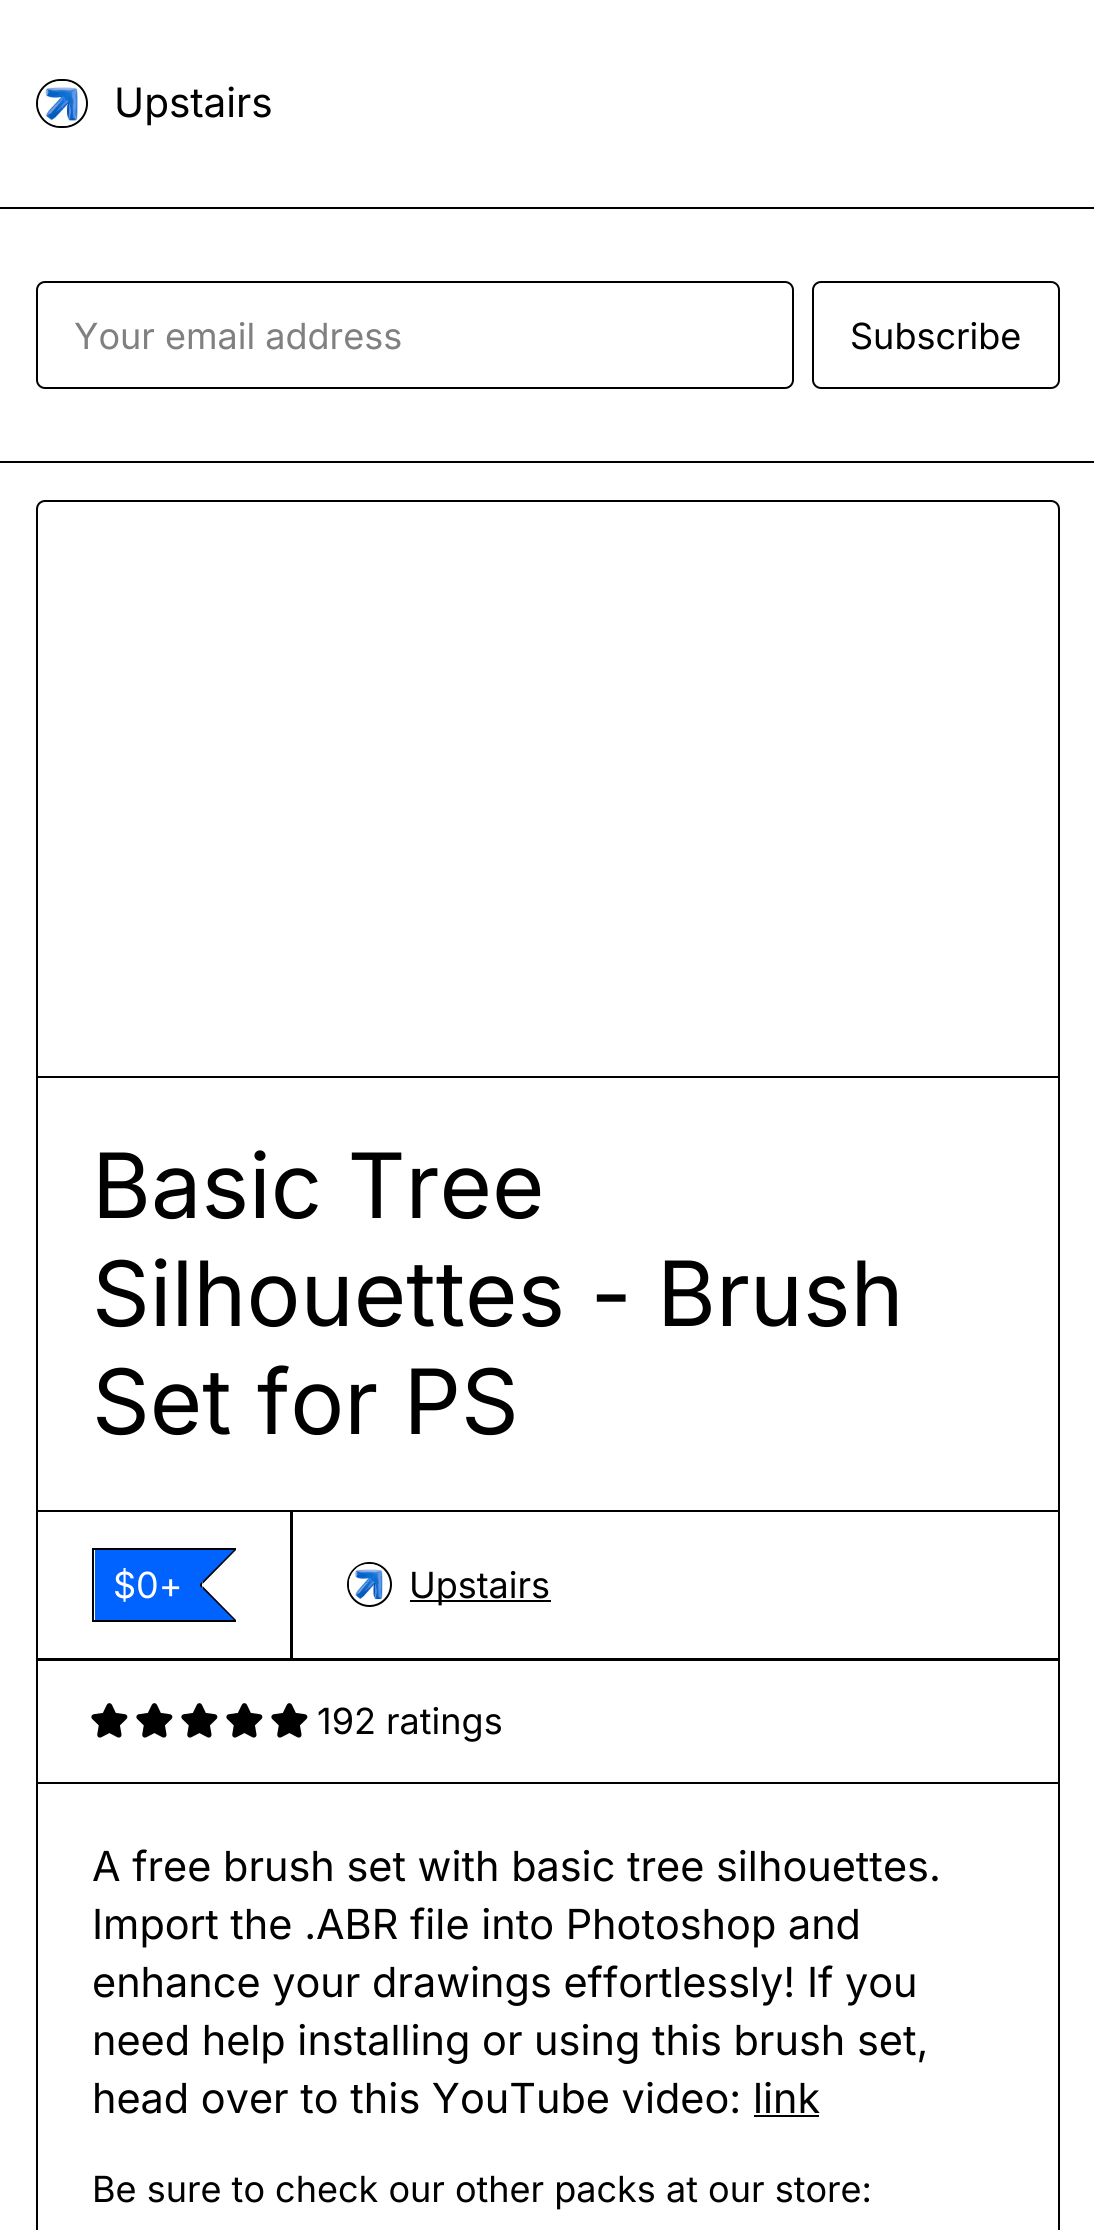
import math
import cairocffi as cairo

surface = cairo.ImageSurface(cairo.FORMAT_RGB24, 1094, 2230)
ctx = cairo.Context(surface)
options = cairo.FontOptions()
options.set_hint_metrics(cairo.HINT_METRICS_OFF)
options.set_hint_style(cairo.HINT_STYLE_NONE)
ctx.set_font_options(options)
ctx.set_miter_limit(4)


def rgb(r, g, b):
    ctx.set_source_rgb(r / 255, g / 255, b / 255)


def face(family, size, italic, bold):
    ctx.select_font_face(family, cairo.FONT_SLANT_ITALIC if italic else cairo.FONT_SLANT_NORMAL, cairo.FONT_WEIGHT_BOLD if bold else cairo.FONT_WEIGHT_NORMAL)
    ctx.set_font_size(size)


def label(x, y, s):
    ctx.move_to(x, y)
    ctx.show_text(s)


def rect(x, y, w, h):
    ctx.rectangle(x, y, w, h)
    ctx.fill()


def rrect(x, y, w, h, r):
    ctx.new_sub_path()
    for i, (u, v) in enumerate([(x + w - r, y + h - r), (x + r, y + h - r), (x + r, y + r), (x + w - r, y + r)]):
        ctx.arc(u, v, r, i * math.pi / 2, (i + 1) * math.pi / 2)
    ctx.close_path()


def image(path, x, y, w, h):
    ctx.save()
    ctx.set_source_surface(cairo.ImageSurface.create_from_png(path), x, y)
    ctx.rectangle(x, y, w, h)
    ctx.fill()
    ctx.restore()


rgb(255, 255, 255)
ctx.paint()
rgb(0, 0, 0)
rect(0, 207, 1094, 2)
rrect(37, 80, 50, 47, 23.5)
ctx.stroke()
image('image0.png', 38, 81, 48, 45)
face('Inter', 40.5, 0, 0)
label(114, 117, 'Upstairs')
rect(0, 461, 1094, 2)
rrect(37, 282, 756, 106, 8)
ctx.stroke()
face('Inter', 36, 0, 0)
rgb(128, 128, 128)
label(74, 349, 'Your email address')
rrect(813, 282, 246, 106, 8)
rgb(0, 0, 0)
ctx.stroke()
label(850, 349, 'Subscribe')
rrect(37, 501, 1022, 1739, 8)
ctx.stroke()
rect(38, 1076, 1020, 2)
face('Inter', 90, 0, 0)
label(92, 1218, 'Basic Tree')
label(92, 1326, 'Silhouettes - Brush')
label(92, 1434, 'Set for PS')
ctx.rectangle(37, 1511, 255, 149)
ctx.stroke()
rect(92, 1548, 144, 2)
rect(92, 1620, 144, 2)
rect(92, 1548, 2, 74)
rgb(0, 98, 255)
rect(95, 1550, 105, 70)
rgb(0, 0, 0)
ctx.new_path()
ctx.move_to(200, 1550)
ctx.line_to(236, 1550)
ctx.line_to(202.5, 1584)
ctx.close_path()
ctx.fill()
ctx.new_path()
ctx.move_to(236, 1620)
ctx.line_to(200, 1620)
ctx.line_to(202.5, 1586)
ctx.close_path()
ctx.fill()
rect(200, 1582, 2, 6)
rgb(0, 98, 255)
ctx.new_path()
ctx.move_to(198, 1550)
ctx.line_to(234, 1550)
ctx.line_to(200, 1584)
ctx.close_path()
ctx.fill()
ctx.new_path()
ctx.move_to(234, 1620)
ctx.line_to(198, 1620)
ctx.line_to(200, 1586)
ctx.close_path()
ctx.fill()
face('Inter', 36, 0, 0)
rgb(255, 255, 255)
label(113, 1598, '$0+')
ctx.rectangle(291, 1511, 768, 149)
rgb(0, 0, 0)
ctx.stroke()
ctx.arc(369.5, 1584.5, 21.5, 0, 2 * math.pi)
ctx.stroke()
image('image1.png', 348, 1563, 41, 41)
rect(410, 1600, 141, 2)
label(409, 1598, 'Upstairs')
ctx.rectangle(37, 1659, 1022, 124)
ctx.stroke()
image('image2.png', 91, 1703, 37, 35)
image('image2.png', 136, 1703, 37, 35)
image('image2.png', 181, 1703, 37, 35)
image('image2.png', 226, 1703, 37, 35)
image('image2.png', 271, 1703, 37, 35)
label(317, 1734, '192 ratings')
face('Inter', 41.4, 0, 0)
label(92, 1881, 'A free brush set with basic tree silhouettes.')
label(92, 1939, 'Import the .ABR file into Photoshop and')
label(92, 1997, 'enhance your drawings effortlessly! If you')
label(92, 2055, 'need help installing or using this brush set,')
label(92, 2113, 'head over to this YouTube video:')
label(753, 2113, 'link')
rect(754, 2115, 65, 2)
face('Inter', 36, 0, 0)
label(92, 2202, 'Be sure to check our other packs at our store:')
surface.write_to_png('render.png')
